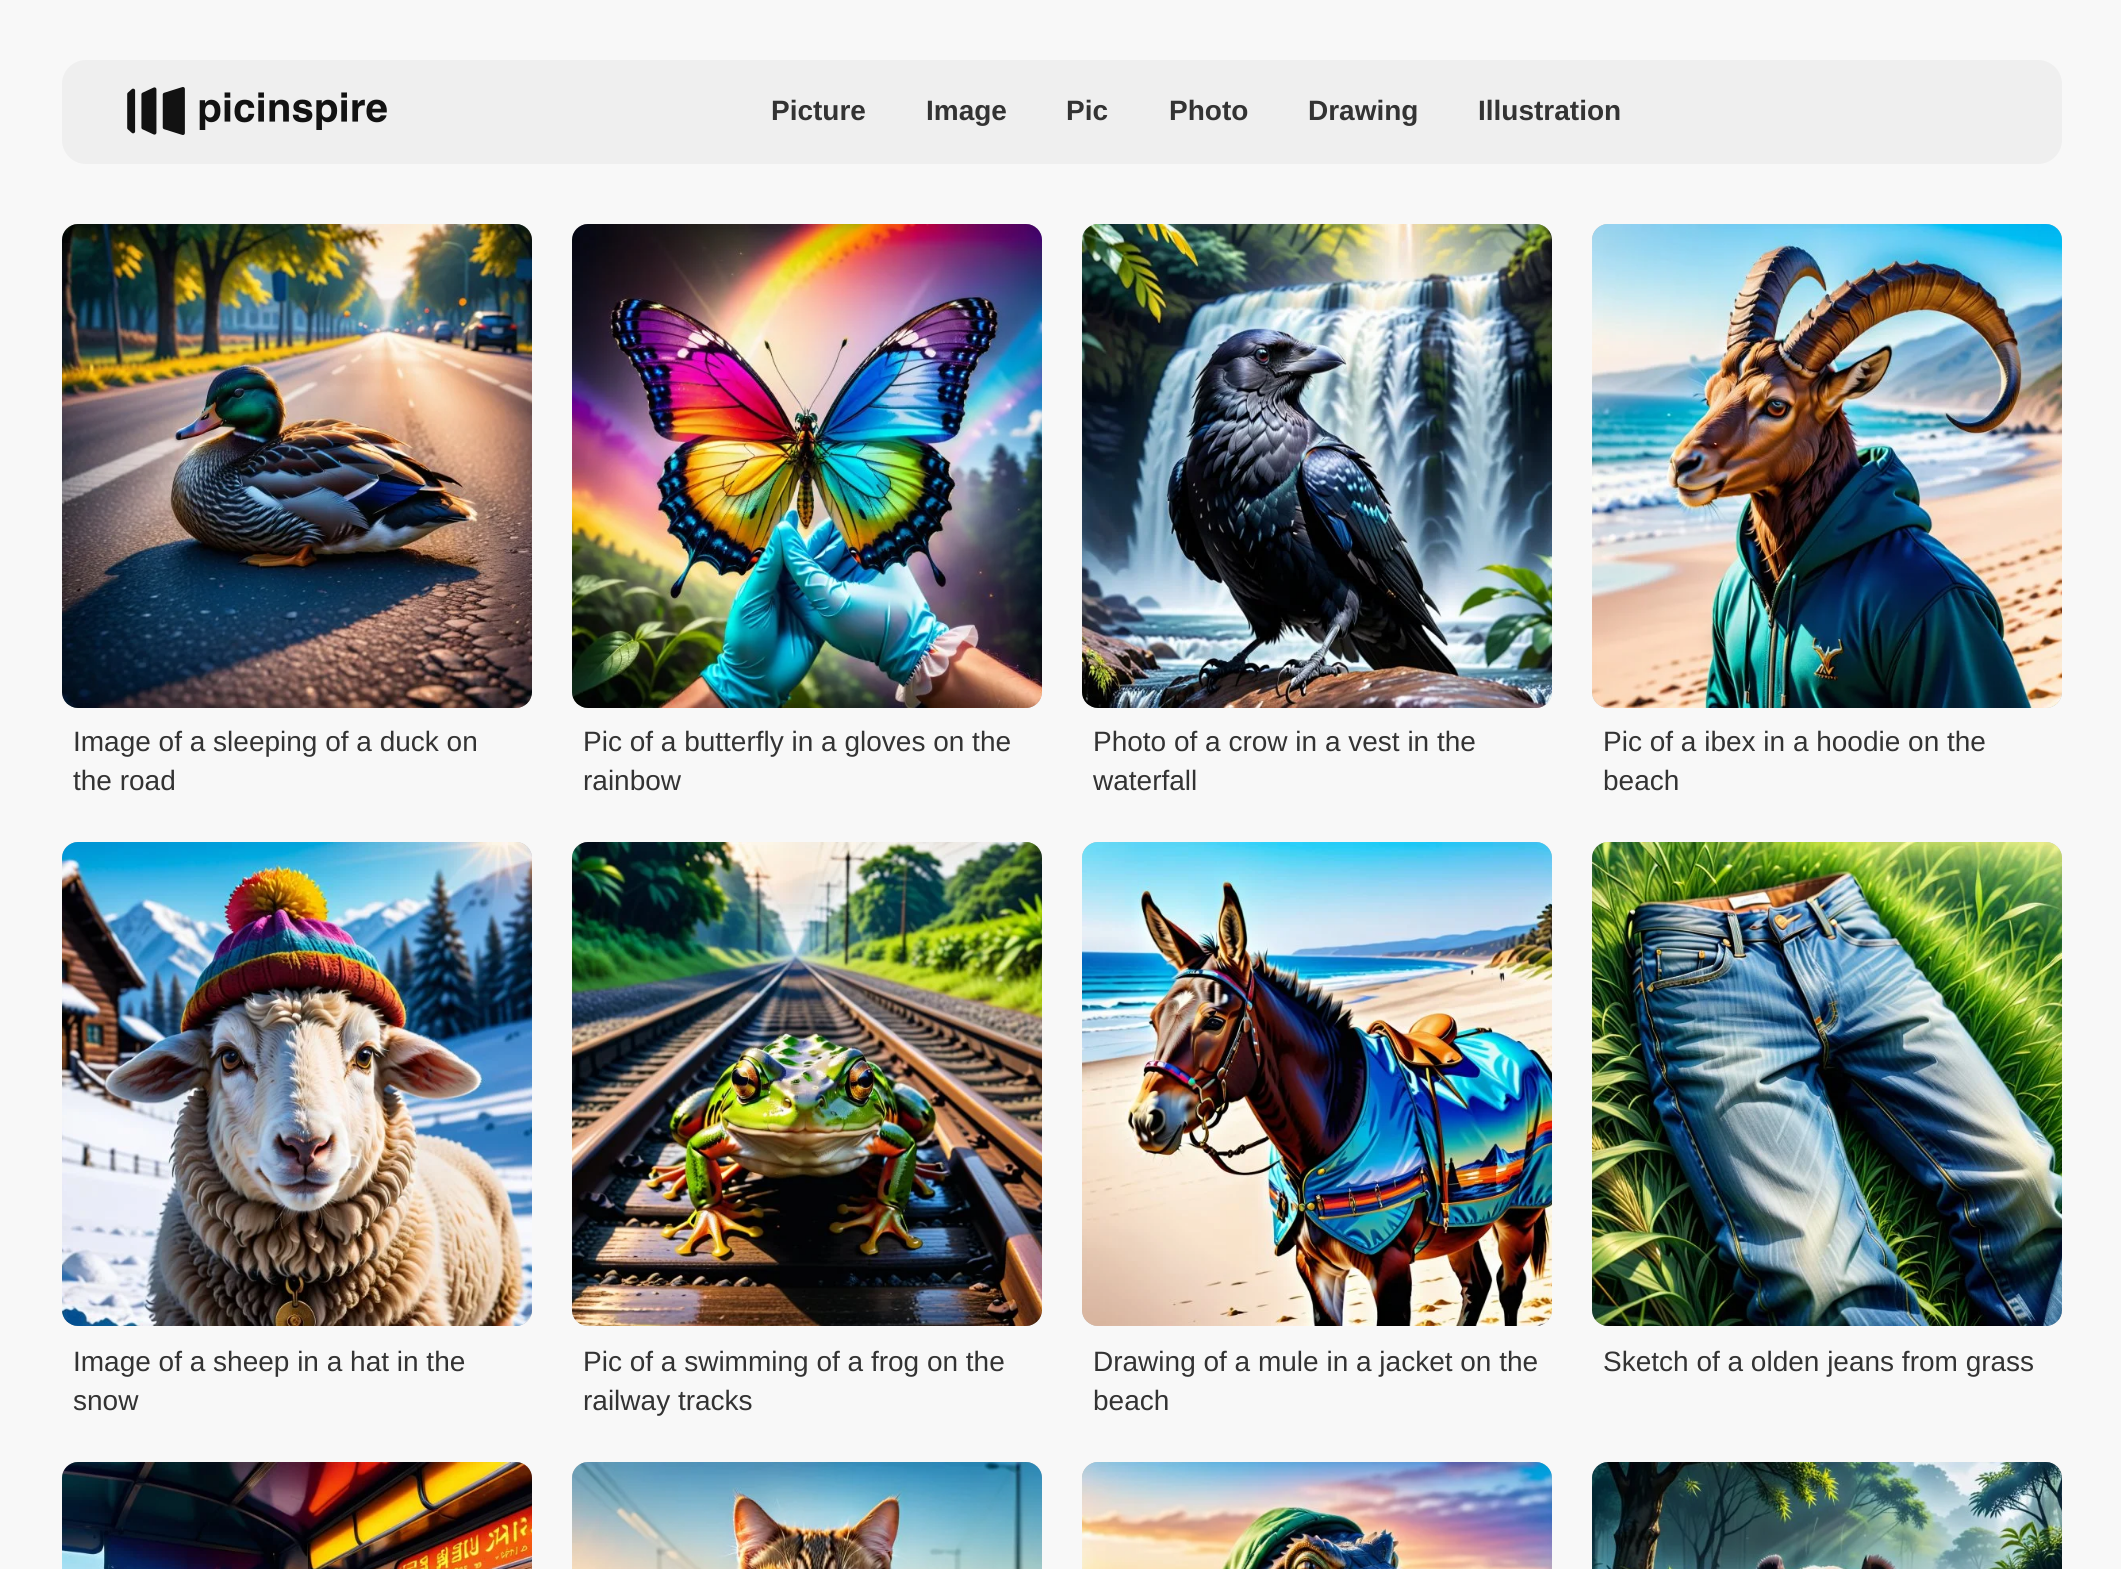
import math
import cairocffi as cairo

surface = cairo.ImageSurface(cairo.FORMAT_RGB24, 2121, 1569)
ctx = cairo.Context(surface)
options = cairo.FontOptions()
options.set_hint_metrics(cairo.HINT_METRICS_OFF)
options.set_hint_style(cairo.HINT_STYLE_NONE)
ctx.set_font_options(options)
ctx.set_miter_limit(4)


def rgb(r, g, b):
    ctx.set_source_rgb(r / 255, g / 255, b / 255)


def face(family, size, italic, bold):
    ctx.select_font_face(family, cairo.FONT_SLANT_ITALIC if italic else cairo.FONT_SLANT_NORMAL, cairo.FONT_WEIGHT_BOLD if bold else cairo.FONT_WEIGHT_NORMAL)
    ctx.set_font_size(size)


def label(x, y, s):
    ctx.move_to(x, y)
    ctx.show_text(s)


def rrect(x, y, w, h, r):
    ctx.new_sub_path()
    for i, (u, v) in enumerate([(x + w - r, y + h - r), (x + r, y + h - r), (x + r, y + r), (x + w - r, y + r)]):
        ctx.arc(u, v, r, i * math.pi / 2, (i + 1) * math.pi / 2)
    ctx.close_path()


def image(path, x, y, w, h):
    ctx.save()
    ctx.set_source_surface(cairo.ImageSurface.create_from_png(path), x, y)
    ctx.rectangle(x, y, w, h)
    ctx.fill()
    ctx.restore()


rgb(248, 248, 248)
ctx.paint()
rgb(239, 239, 239)
rrect(62, 60, 2000, 104, 24)
ctx.fill()
image('image0.png', 127, 87, 260, 48)
face('Liberation Sans', 28, 0, 1)
rgb(51, 51, 51)
label(771, 120, 'Picture')
label(926, 120, 'Image')
label(1066, 120, 'Pic')
label(1169, 120, 'Photo')
label(1308, 120, 'Drawing')
label(1478, 120, 'Illustration')
rgb(196, 196, 196)
rrect(62, 224, 470, 484, 16)
ctx.fill()
image('image1.png', 62, 224, 470, 484)
face('Liberation Sans', 28, 0, 0)
rgb(51, 51, 51)
label(73, 751, 'Image of a sleeping of a duck on')
label(73, 790, 'the road')
rgb(196, 196, 196)
rrect(572, 224, 470, 484, 16)
ctx.fill()
image('image2.png', 572, 224, 470, 484)
rgb(51, 51, 51)
label(583, 751, 'Pic of a butterfly in a gloves on the')
label(583, 790, 'rainbow')
rgb(196, 196, 196)
rrect(1082, 224, 470, 484, 16)
ctx.fill()
image('image3.png', 1082, 224, 470, 484)
rgb(51, 51, 51)
label(1093, 751, 'Photo of a crow in a vest in the')
label(1093, 790, 'waterfall')
rgb(196, 196, 196)
rrect(1592, 224, 470, 484, 16)
ctx.fill()
image('image4.png', 1592, 224, 470, 484)
rgb(51, 51, 51)
label(1603, 751, 'Pic of a ibex in a hoodie on the')
label(1603, 790, 'beach')
rgb(196, 196, 196)
rrect(62, 842, 470, 484, 16)
ctx.fill()
image('image5.png', 62, 842, 470, 484)
rgb(51, 51, 51)
label(73, 1371, 'Image of a sheep in a hat in the')
label(73, 1410, 'snow')
rgb(196, 196, 196)
rrect(572, 842, 470, 484, 16)
ctx.fill()
image('image6.png', 572, 842, 470, 484)
rgb(51, 51, 51)
label(583, 1371, 'Pic of a swimming of a frog on the')
label(583, 1410, 'railway tracks')
rgb(196, 196, 196)
rrect(1082, 842, 470, 484, 16)
ctx.fill()
image('image7.png', 1082, 842, 470, 484)
rgb(51, 51, 51)
label(1093, 1371, 'Drawing of a mule in a jacket on the')
label(1093, 1410, 'beach')
rgb(196, 196, 196)
rrect(1592, 842, 470, 484, 16)
ctx.fill()
image('image8.png', 1592, 842, 470, 484)
rgb(51, 51, 51)
label(1603, 1371, 'Sketch of a olden jeans from grass')
rgb(196, 196, 196)
rrect(62, 1462, 470, 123, 16)
ctx.fill()
image('image9.png', 62, 1462, 470, 107)
rrect(572, 1462, 470, 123, 16)
ctx.fill()
image('image10.png', 572, 1462, 470, 107)
rrect(1082, 1462, 470, 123, 16)
ctx.fill()
image('image11.png', 1082, 1462, 470, 107)
rrect(1592, 1462, 470, 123, 16)
ctx.fill()
image('image12.png', 1592, 1462, 470, 107)
surface.write_to_png('render.png')
